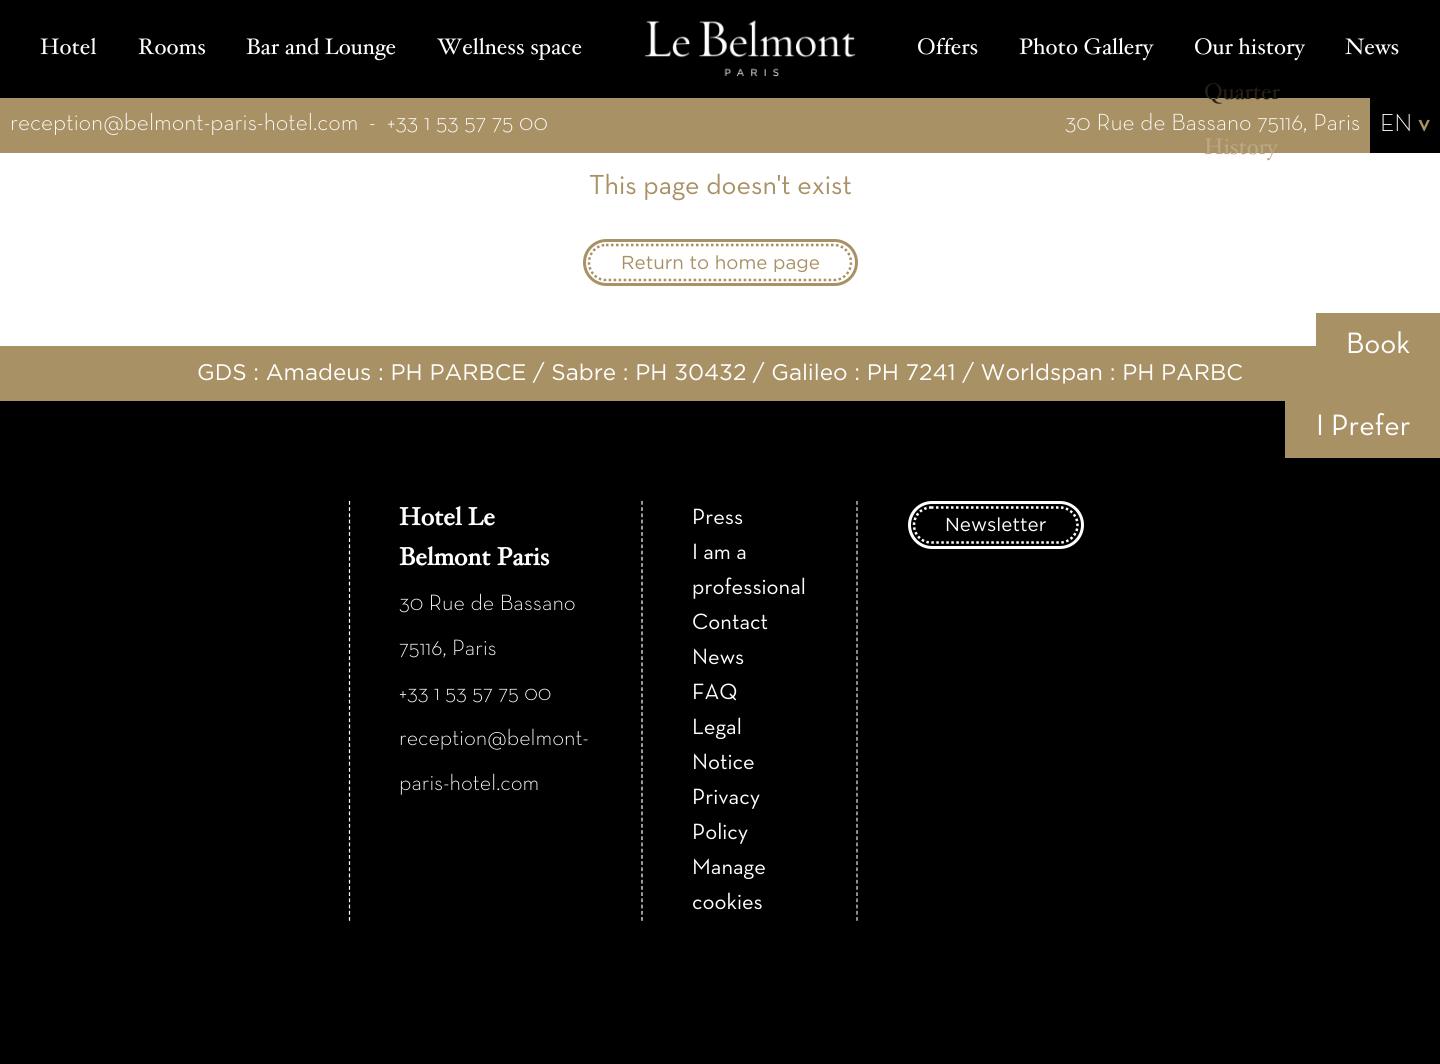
import math
import cairocffi as cairo

surface = cairo.ImageSurface(cairo.FORMAT_RGB24, 1440, 1064)
ctx = cairo.Context(surface)
options = cairo.FontOptions()
options.set_hint_metrics(cairo.HINT_METRICS_OFF)
options.set_hint_style(cairo.HINT_STYLE_NONE)
ctx.set_font_options(options)
ctx.set_miter_limit(4)


def rgb(r, g, b):
    ctx.set_source_rgb(r / 255, g / 255, b / 255)


def face(family, size, italic, bold):
    ctx.select_font_face(family, cairo.FONT_SLANT_ITALIC if italic else cairo.FONT_SLANT_NORMAL, cairo.FONT_WEIGHT_BOLD if bold else cairo.FONT_WEIGHT_NORMAL)
    ctx.set_font_size(size)


def label(x, y, s):
    ctx.move_to(x, y)
    ctx.show_text(s)


def rect(x, y, w, h):
    ctx.rectangle(x, y, w, h)
    ctx.fill()


def rrect(x, y, w, h, r):
    ctx.new_sub_path()
    for i, (u, v) in enumerate([(x + w - r, y + h - r), (x + r, y + h - r), (x + r, y + r), (x + w - r, y + r)]):
        ctx.arc(u, v, r, i * math.pi / 2, (i + 1) * math.pi / 2)
    ctx.close_path()


def image(path, x, y, w, h):
    ctx.save()
    ctx.set_source_surface(cairo.ImageSurface.create_from_png(path), x, y)
    ctx.rectangle(x, y, w, h)
    ctx.fill()
    ctx.restore()


rgb(255, 255, 255)
ctx.paint()
rgb(0, 0, 0)
rect(0, 0, 1440, 98)
face('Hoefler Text', 22.5, 0, 0)
rgb(255, 255, 255)
label(40, 54, 'Hotel')
label(138, 54, 'Rooms')
label(246, 54, 'Bar and Lounge')
label(437, 54, 'Wellness space')
image('image0.png', 645, 20, 211, 57)
label(917, 54, 'Offers')
label(1019, 54, 'Photo Gallery')
label(1194, 54, 'Our history')
rgb(169, 145, 102)
rect(0, 98, 1370, 55)
rgb(38, 32, 23)
label(1204, 99, 'Quarter')
rgb(187, 168, 134)
label(1204, 154, 'History')
rgb(255, 255, 255)
label(1345, 54, 'News')
face('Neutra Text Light', 23.75, 0, 0)
label(10, 130, 'reception@belmont-paris-hotel.com')
label(369, 130, '-')
label(387, 130, '+33 1 53 57 75 00')
label(1065, 130, '30 Rue de Bassano 75116, Paris')
rgb(0, 0, 0)
rect(1370, 98, 70, 55)
face('Neutra Text Light', 25, 0, 0)
rgb(255, 255, 255)
label(1380, 131, 'EN')
face('Neutra Text', 25, 0, 1)
rgb(169, 145, 102)
label(1418, 131, 'v')
rect(1316, 313, 124, 33)
rect(0, 346, 1440, 55)
face('Neutra Text', 30, 0, 0)
rgb(255, 255, 255)
label(1346, 353, 'Book')
rgb(0, 0, 0)
rect(0, 401, 1440, 663)
rgb(169, 145, 102)
rect(1285, 401, 155, 57)
rgb(255, 255, 255)
label(1316, 435, 'I Prefer')
face('Neutra Text', 28, 0, 0)
rgb(169, 145, 102)
label(589, 194, 'This page doesn\'t exist')
rrect(584.5, 240.5, 272, 44, 22)
ctx.set_line_width(3)
ctx.stroke()
ctx.new_path()
ctx.move_to(606, 245)
ctx.line_to(834, 245)
ctx.curve_to(843.5, 245, 851, 253, 851, 262.5)
ctx.curve_to(851, 272, 843.5, 280, 834, 280)
ctx.line_to(606, 280)
ctx.curve_to(596.5, 280, 589, 272, 589, 262.5)
ctx.curve_to(589, 253, 596.5, 245, 606, 245)
ctx.close_path()
ctx.set_line_width(2.5)
ctx.set_dash([2.5, 2.5])
ctx.stroke()
face('Gotham', 18.75, 0, 0)
label(621, 269, 'Return to home page')
face('Gotham', 22.5, 0, 0)
rgb(255, 255, 255)
label(197, 380, 'GDS : Amadeus : PH PARBCE / Sabre : PH 30432 / Galileo : PH 7241 / Worldspan : PH PARBC')
ctx.new_path()
ctx.move_to(349.5, 501)
ctx.line_to(349.5, 921)
ctx.set_line_width(1.2)
ctx.set_dash([3.75, 2.46])
ctx.stroke()
face('Hoefler Text', 25, 0, 1)
label(399, 525, 'Hotel Le')
label(399, 565, 'Belmont Paris')
face('Neutra Text Light', 22.5, 0, 0)
label(399, 610, '30 Rue de Bassano')
label(399, 655, '75116, Paris')
label(399, 700, '+33 1 53 57 75 00')
label(399, 745, 'reception@belmont-')
label(399, 790, 'paris-hotel.com')
ctx.new_path()
ctx.move_to(642, 501)
ctx.line_to(642, 921)
ctx.stroke()
face('Neutra Text', 22.5, 0, 0)
label(692, 524, 'Press')
label(692, 559, 'I am a')
label(692, 594, 'professional')
label(692, 629, 'Contact')
label(692, 664, 'News')
label(692, 699, 'FAQ')
label(692, 734, 'Legal')
label(692, 769, 'Notice')
label(692, 804, 'Privacy')
label(692, 839, 'Policy')
label(692, 874, 'Manage')
label(692, 909, 'cookies')
ctx.new_path()
ctx.move_to(857, 501)
ctx.line_to(857, 921)
rgb(229, 231, 235)
ctx.stroke()
rrect(909.5, 502.5, 173, 45, 22.5)
rgb(255, 255, 255)
ctx.set_line_width(3)
ctx.set_dash([])
ctx.stroke()
ctx.new_path()
ctx.move_to(931, 507.5)
ctx.line_to(1060, 507.5)
ctx.curve_to(1069.5, 507.5, 1077.5, 515.5, 1077.5, 525)
ctx.curve_to(1077.5, 534.5, 1069.5, 542.5, 1060, 542.5)
ctx.line_to(931, 542.5)
ctx.curve_to(921.5, 542.5, 914, 534.5, 914, 525)
ctx.curve_to(914, 515.5, 921.5, 507.5, 931, 507.5)
ctx.close_path()
ctx.set_line_width(2.5)
ctx.set_dash([2.5, 2.5])
ctx.stroke()
face('Gotham', 18.75, 0, 0)
label(945, 531, 'Newsletter')
surface.write_to_png('render.png')
